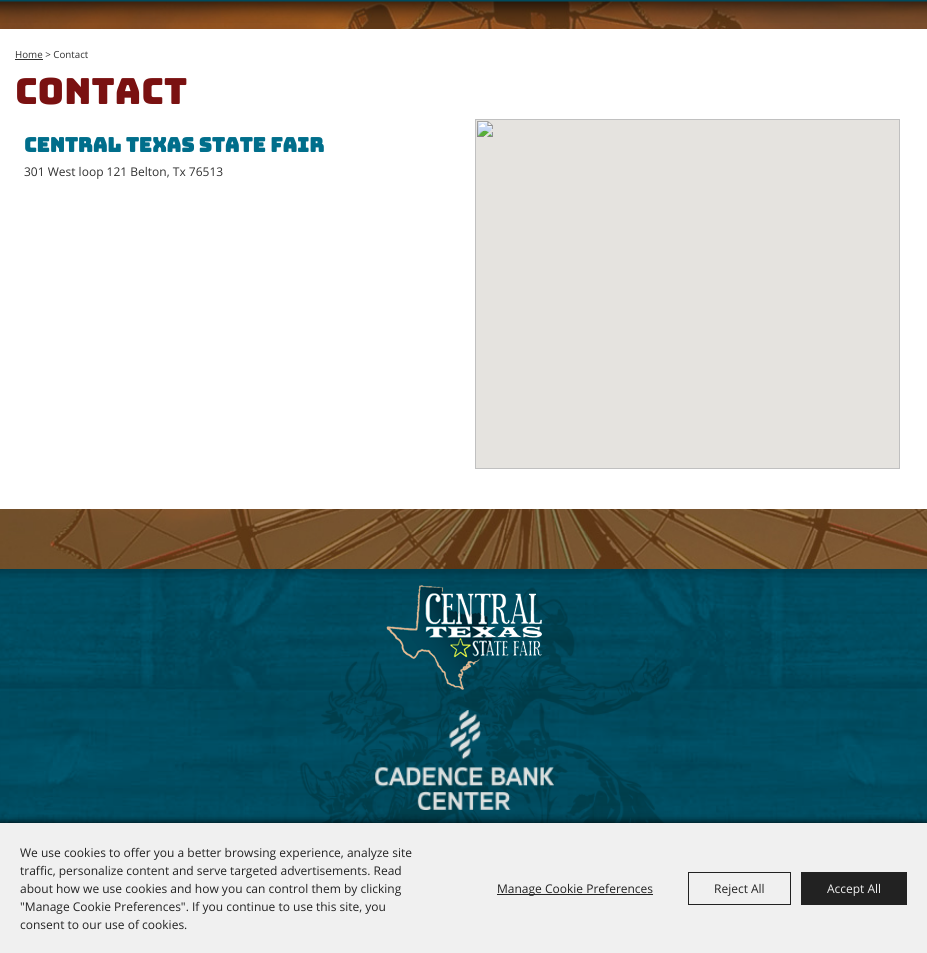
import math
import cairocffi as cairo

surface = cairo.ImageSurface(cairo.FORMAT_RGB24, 927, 953)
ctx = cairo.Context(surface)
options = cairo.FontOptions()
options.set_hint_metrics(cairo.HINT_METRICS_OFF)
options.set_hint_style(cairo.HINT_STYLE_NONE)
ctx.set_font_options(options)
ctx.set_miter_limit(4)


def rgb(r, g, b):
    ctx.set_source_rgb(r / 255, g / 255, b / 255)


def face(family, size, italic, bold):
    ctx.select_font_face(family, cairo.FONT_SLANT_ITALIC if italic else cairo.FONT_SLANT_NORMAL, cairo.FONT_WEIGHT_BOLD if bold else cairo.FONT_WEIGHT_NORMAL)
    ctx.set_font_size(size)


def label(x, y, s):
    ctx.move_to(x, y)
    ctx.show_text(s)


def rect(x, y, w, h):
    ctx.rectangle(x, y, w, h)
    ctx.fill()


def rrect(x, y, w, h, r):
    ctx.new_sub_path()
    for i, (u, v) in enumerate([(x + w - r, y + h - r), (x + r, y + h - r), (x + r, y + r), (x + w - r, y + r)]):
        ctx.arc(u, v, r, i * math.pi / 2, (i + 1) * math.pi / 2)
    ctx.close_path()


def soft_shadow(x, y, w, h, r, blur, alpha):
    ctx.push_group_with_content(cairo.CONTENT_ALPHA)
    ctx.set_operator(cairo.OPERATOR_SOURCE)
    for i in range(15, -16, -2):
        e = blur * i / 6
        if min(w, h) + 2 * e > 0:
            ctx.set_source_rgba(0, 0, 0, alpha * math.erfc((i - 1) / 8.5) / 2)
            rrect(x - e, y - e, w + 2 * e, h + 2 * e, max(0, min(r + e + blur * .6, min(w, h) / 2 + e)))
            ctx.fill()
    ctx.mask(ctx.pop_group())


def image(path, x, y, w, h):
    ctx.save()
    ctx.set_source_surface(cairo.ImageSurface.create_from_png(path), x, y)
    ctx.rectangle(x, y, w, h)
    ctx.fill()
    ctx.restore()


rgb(255, 255, 255)
ctx.paint()
image('image0.png', 0, 1, 927, 568)
image('image1.png', 0, 0, 927, 23)
rgb(255, 255, 255)
rect(0, 29, 927, 480)
face('Open Sans', 9.75, 0, 0)
rgb(49, 49, 49)
label(15, 58, 'Home > Contact')
rect(15, 59, 28, 1)
face('Bungee', 36, 0, 0)
rgb(122, 17, 17)
label(15, 104, 'Contact')
face('Bungee', 20, 0, 1)
rgb(0, 110, 139)
label(24, 152, 'Central Texas State Fair')
face('Open Sans', 12, 0, 0)
rgb(49, 49, 49)
label(24, 176, '301 West loop 121 Belton, Tx 76513')
image('image2.png', 475, 119, 425, 350)
image('image3.png', 0, 569, 927, 254)
image('image4.png', 386, 585, 156, 105)
image('image5.png', 374, 710, 180, 100)
rgb(0, 0, 0)
soft_shadow(-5, 823, 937, 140, 0, 5, 1)
rgb(240, 240, 240)
rect(0, 823, 927, 130)
rgb(34, 34, 34)
label(20, 857, 'We use cookies to offer you a better browsing experience, analyze site')
label(20, 875, 'traffic, personalize content and serve targeted advertisements. Read')
label(20, 893, 'about how we use cookies and how you can control them by clicking')
label(20, 911, '"Manage Cookie Preferences". If you continue to use this site, you')
label(20, 929, 'consent to our use of cookies.')
rect(497, 894, 156, 1)
label(497, 893, 'Manage Cookie Preferences')
ctx.rectangle(688.5, 872.5, 102, 32)
ctx.set_line_width(1)
ctx.stroke()
label(714, 893, 'Reject All')
rect(801, 872, 106, 33)
rgb(240, 240, 240)
label(827, 893, 'Accept All')
surface.write_to_png('render.png')
